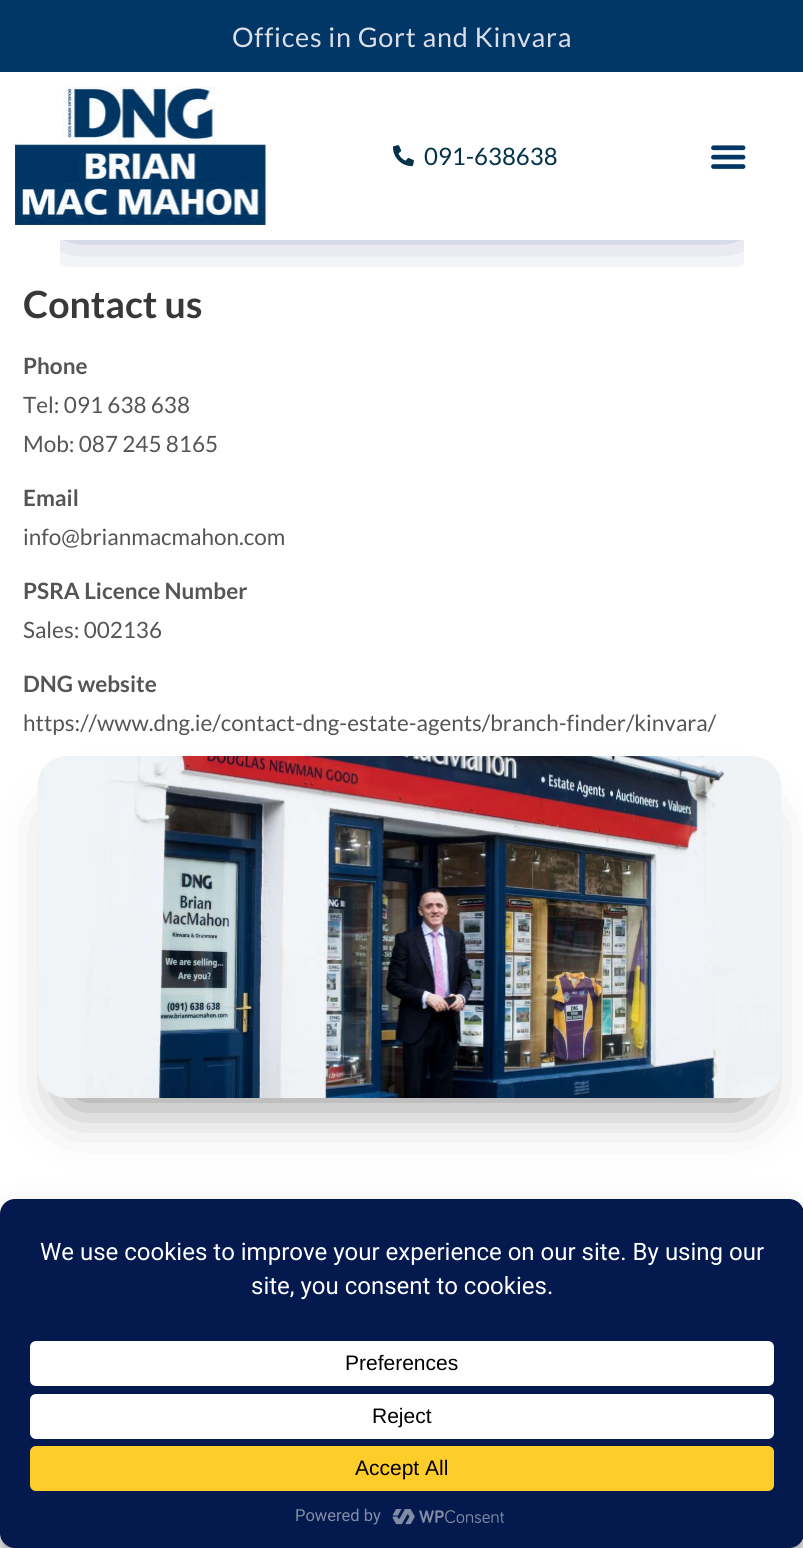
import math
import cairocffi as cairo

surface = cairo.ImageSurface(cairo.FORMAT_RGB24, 803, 1548)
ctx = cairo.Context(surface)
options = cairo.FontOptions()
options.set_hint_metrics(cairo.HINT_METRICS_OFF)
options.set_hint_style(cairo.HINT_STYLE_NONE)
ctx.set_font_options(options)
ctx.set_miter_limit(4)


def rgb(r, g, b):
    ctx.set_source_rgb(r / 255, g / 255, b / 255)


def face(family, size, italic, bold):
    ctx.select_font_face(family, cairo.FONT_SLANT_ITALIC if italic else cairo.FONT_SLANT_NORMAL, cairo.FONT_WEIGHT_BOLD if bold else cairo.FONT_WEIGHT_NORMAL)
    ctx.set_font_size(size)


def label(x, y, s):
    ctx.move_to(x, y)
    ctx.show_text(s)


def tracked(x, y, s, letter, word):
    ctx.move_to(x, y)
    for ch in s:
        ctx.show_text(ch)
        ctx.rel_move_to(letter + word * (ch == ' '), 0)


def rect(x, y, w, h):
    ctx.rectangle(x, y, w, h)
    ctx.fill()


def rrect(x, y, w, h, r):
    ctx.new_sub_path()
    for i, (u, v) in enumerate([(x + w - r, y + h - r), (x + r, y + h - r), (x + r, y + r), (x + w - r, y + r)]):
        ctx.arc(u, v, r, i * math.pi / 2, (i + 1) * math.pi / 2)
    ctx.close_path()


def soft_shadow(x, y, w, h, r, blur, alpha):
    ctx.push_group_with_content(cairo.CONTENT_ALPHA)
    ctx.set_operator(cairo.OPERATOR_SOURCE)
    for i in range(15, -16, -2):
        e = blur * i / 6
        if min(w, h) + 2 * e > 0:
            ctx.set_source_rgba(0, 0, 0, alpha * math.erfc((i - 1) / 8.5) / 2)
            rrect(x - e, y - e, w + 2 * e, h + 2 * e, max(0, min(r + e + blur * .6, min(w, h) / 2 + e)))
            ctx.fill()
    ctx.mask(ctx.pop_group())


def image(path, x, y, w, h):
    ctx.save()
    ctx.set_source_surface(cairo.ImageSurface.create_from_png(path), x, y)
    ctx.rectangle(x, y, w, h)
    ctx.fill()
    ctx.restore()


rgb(255, 255, 255)
ctx.paint()
rgb(0, 55, 102)
rect(0, 0, 803, 72)
face('Lato', 27, 0, 0)
rgb(220, 222, 233)
tracked(232, 47, 'Offices in Gort and Kinvara', 0.75, 0)
ctx.save()
ctx.rectangle(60, 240, 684, 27)
ctx.clip()
rgb(8, 27, 116)
soft_shadow(78, 192, 648, 12, 0, 35, 1)
ctx.restore()
image('image0.png', 15, 87, 251, 138)
image('image1.png', 393, 145, 21, 22)
face('Lato', 24, 0, 0)
rgb(4, 50, 73)
label(424, 165, '091-638638')
image('image2.png', 711, 145, 35, 24)
face('Lato', 37.5, 0, 1)
rgb(56, 56, 56)
label(23, 318, 'Contact us')
face('Lato', 22.5, 0, 1)
rgb(85, 85, 85)
label(23, 374, 'Phone')
face('Lato', 22.5, 0, 0)
label(23, 413, 'Tel: 091 638 638')
label(23, 452, 'Mob: 087 245 8165')
face('Lato', 22.5, 0, 1)
label(23, 506, 'Email')
face('Lato', 22.5, 0, 0)
label(23, 545, 'info@brianmacmahon.com')
face('Lato', 22.5, 0, 1)
label(23, 599, 'PSRA Licence Number')
face('Lato', 22.5, 0, 0)
label(23, 638, 'Sales: 002136')
face('Lato', 22.5, 0, 1)
label(23, 692, 'DNG website')
face('Lato', 22.5, 0, 0)
label(23, 731, 'https://www.dng.ie/contact-dng-estate-agents/branch-finder/kinvara/')
rgb(0, 0, 0)
soft_shadow(72, 825, 675, 273, 0, 30, 0.5)
image('image3.png', 37, 756, 745, 342)
soft_shadow(0, 1208, 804, 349, 15, 4.5, 0.23)
soft_shadow(0, 1214, 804, 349, 15, 15, 0.19)
rgb(4, 25, 78)
rrect(0, 1199, 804, 349, 15)
ctx.fill()
face('Roboto', 24, 0, 0)
rgb(255, 255, 255)
label(40, 1260, 'We use cookies to improve your experience on our site. By using our')
label(251, 1294, 'site, you consent to cookies.')
rrect(30, 1341, 744, 45, 6)
ctx.fill()
face('Liberation Sans', 21, 0, 0)
rgb(0, 0, 0)
label(345, 1370, 'Preferences')
rgb(255, 255, 255)
rrect(30, 1394, 744, 45, 6)
ctx.fill()
rgb(0, 0, 0)
label(372, 1423, 'Reject')
rgb(255, 205, 42)
rrect(30, 1446, 744, 45, 6)
ctx.fill()
rgb(0, 0, 0)
label(355, 1475, 'Accept All')
face('Roboto', 16.5, 0, 0)
rgb(130, 140, 167)
label(295, 1521, 'Powered by')
image('image4.png', 392, 1509, 112, 16)
surface.write_to_png('render.png')
